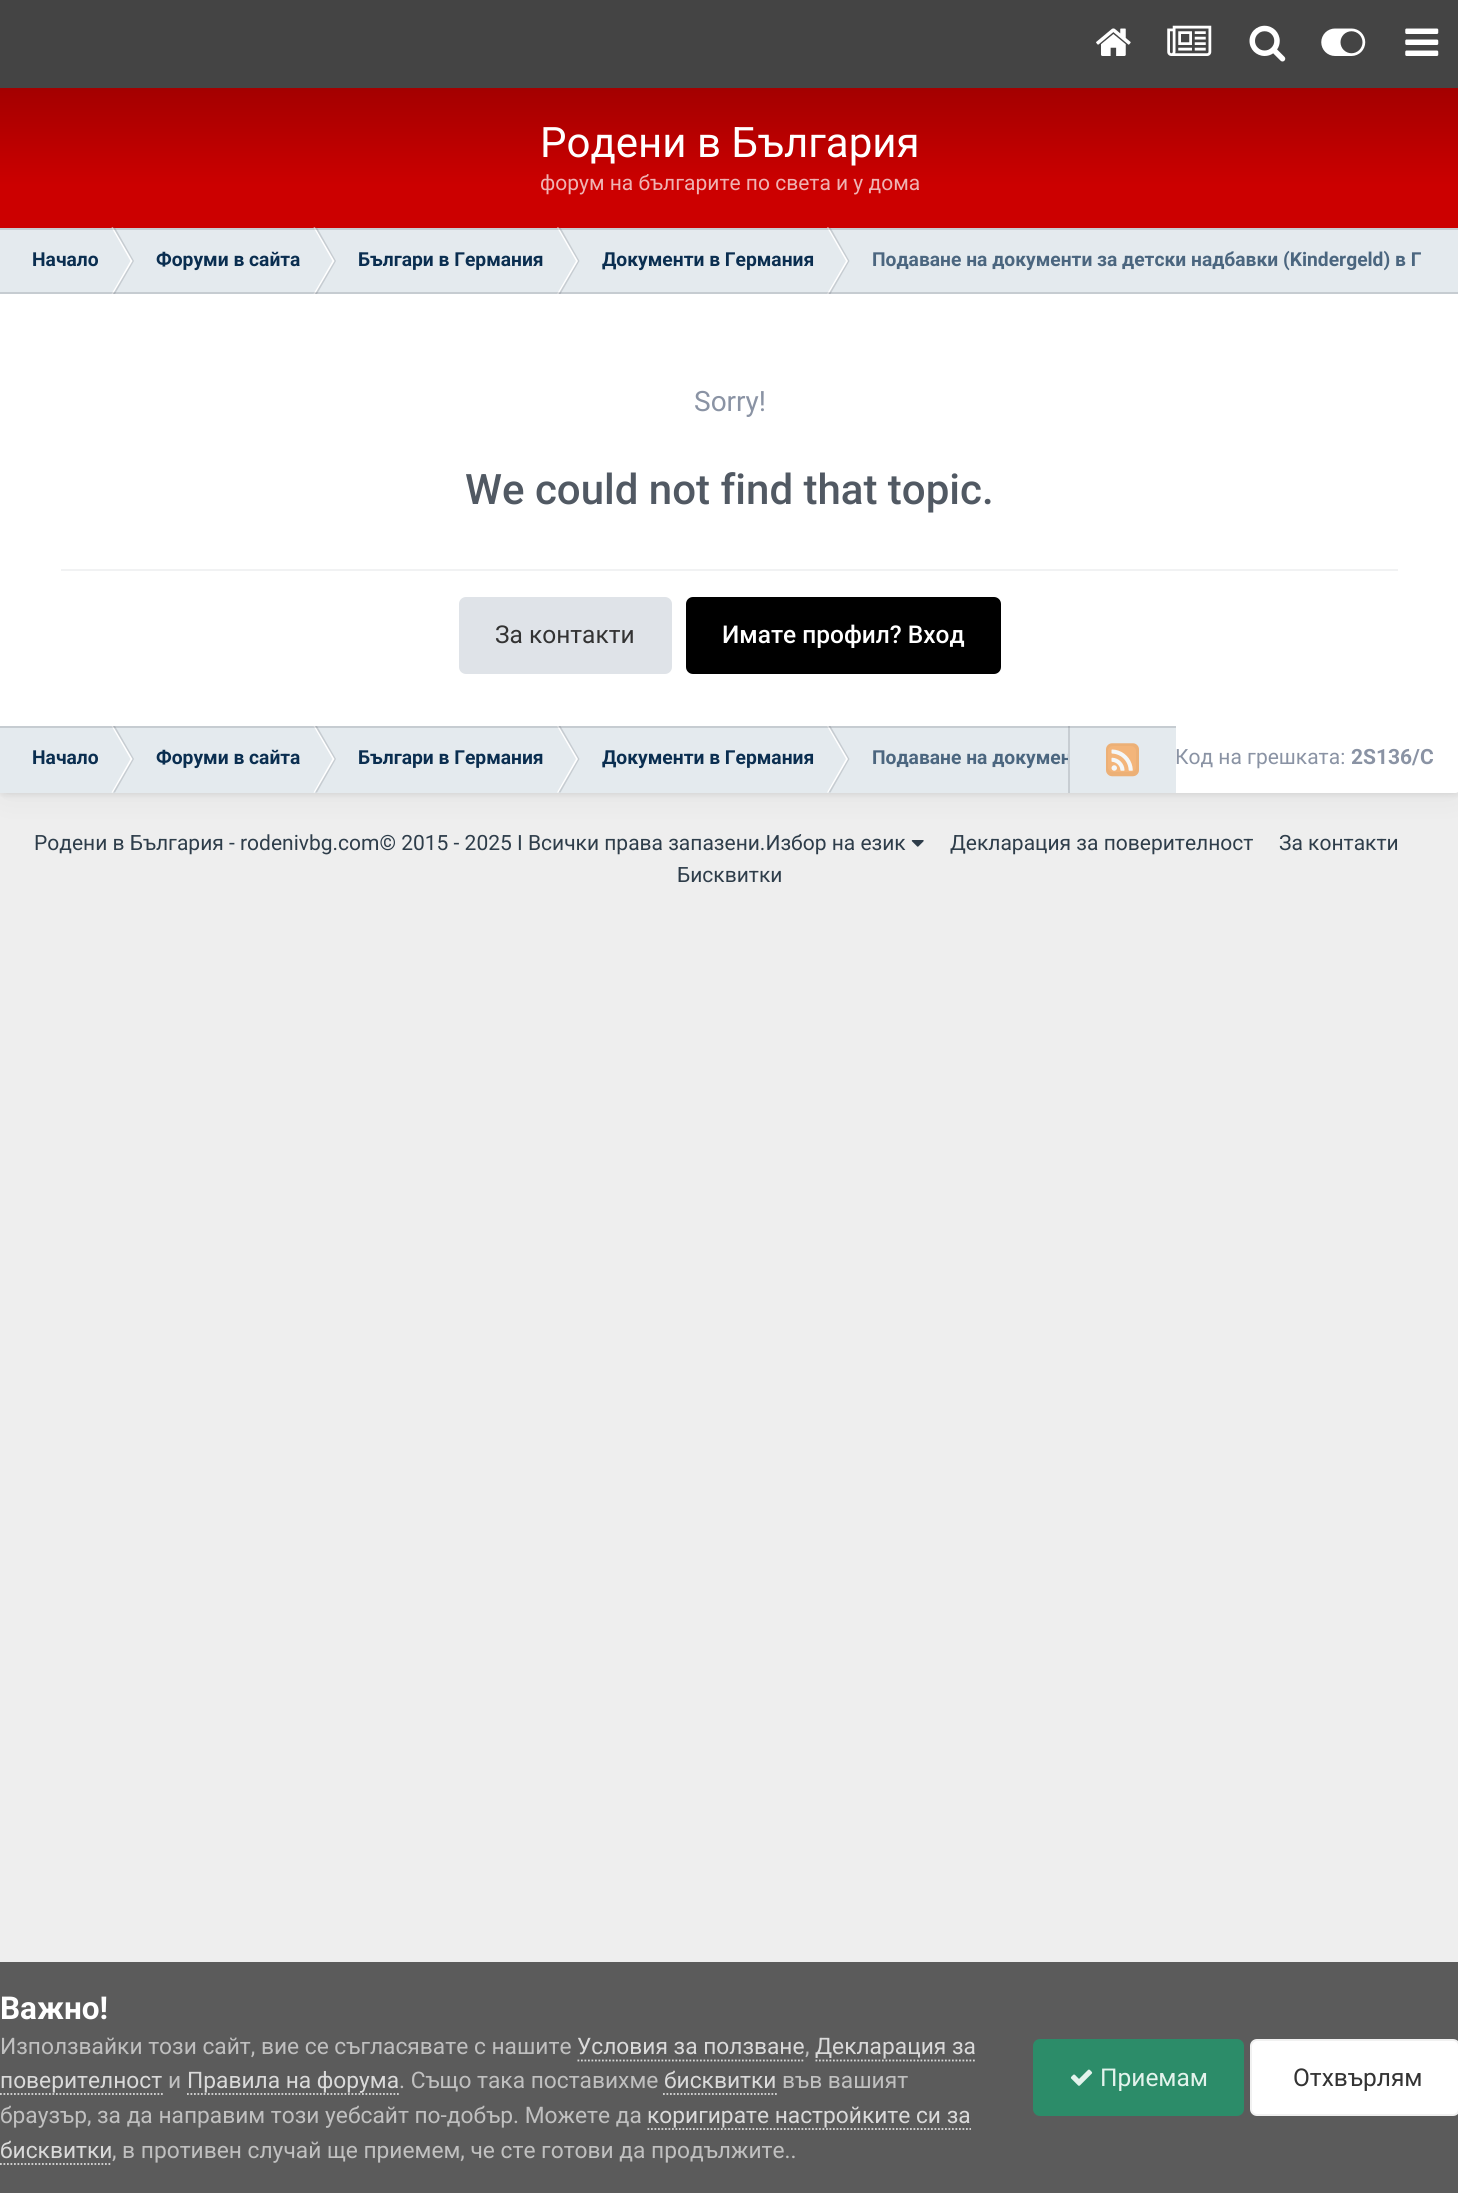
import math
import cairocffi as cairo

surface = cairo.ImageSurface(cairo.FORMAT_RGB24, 1458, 2193)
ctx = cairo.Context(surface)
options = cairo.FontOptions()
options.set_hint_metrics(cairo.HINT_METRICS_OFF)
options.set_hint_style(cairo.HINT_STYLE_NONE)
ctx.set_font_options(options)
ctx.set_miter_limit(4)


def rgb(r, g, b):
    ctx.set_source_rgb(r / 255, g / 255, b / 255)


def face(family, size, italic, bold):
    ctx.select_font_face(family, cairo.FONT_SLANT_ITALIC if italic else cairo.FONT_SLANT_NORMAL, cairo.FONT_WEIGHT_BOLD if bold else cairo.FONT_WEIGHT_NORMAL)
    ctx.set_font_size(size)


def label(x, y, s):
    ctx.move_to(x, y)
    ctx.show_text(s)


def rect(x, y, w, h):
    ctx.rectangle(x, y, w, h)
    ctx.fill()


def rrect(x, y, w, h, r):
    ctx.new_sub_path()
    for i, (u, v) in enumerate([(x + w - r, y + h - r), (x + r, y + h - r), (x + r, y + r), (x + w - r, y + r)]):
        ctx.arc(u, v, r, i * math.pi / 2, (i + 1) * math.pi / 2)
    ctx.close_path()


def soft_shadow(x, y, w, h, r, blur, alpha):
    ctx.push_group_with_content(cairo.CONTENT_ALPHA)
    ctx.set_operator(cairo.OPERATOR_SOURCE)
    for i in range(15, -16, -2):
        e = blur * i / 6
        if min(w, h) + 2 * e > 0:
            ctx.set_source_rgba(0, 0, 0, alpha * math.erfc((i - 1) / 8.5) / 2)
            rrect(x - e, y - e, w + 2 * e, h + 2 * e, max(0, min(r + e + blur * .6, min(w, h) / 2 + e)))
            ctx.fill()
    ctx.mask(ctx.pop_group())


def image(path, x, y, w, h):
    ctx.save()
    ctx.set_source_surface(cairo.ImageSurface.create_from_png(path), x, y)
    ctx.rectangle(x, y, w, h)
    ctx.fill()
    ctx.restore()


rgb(238, 238, 238)
ctx.paint()
rgb(68, 68, 68)
rect(0, 0, 1458, 88)
image('image0.png', 1096, 28, 35, 28)
image('image1.png', 1167, 25, 45, 31)
image('image2.png', 1249, 25, 37, 37)
image('image3.png', 1321, 28, 45, 28)
image('image4.png', 1405, 28, 34, 28)
rgb(0, 0, 0)
soft_shadow(0, 229, 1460, 566, 5, 2.5, 0.08)
soft_shadow(0, 228, 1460, 565, 5, 17.5, 0.06)
gradient = cairo.LinearGradient(730, 87, 730, 228)
gradient.add_color_stop_rgba(0, 0.639, 0, 0, 1)
gradient.add_color_stop_rgba(0.7, 0.8, 0, 0, 1)
ctx.set_source(gradient)
rect(0, 88, 1458, 140)
face('Roboto', 42, 0, 0)
rgb(255, 255, 255)
label(540, 157, 'Родени в България')
face('Roboto', 21, 0, 0)
rgb(239, 179, 179)
label(540, 190, 'форум на българите по света и у дома')
rgb(255, 255, 255)
ctx.new_path()
ctx.move_to(0, 228)
ctx.line_to(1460, 228)
ctx.line_to(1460, 788)
ctx.curve_to(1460, 791, 1458, 793, 1455, 793)
ctx.line_to(5, 793)
ctx.curve_to(2, 793, 0, 791, 0, 788)
ctx.close_path()
ctx.fill()
rgb(228, 234, 238)
rect(0, 228, 1458, 66)
rgb(255, 255, 255)
ctx.new_path()
ctx.move_to(111.5, 227.5)
ctx.line_to(113, 227.5)
ctx.line_to(132.5, 261)
ctx.line_to(130.5, 261)
ctx.close_path()
ctx.fill()
ctx.set_source_rgba(0.318, 0.349, 0.388, 0.2)
ctx.new_path()
ctx.move_to(113, 227.5)
ctx.line_to(115, 227.5)
ctx.line_to(134, 261)
ctx.line_to(132.5, 261)
ctx.close_path()
ctx.fill()
rgb(255, 255, 255)
ctx.new_path()
ctx.move_to(313.5, 227.5)
ctx.line_to(315, 227.5)
ctx.line_to(334.5, 261)
ctx.line_to(332.5, 261)
ctx.close_path()
ctx.fill()
ctx.set_source_rgba(0.318, 0.349, 0.388, 0.2)
ctx.new_path()
ctx.move_to(315, 227.5)
ctx.line_to(317, 227.5)
ctx.line_to(336, 261)
ctx.line_to(334.5, 261)
ctx.close_path()
ctx.fill()
rgb(255, 255, 255)
ctx.new_path()
ctx.move_to(557, 227.5)
ctx.line_to(558.5, 227.5)
ctx.line_to(578, 261)
ctx.line_to(576, 261)
ctx.close_path()
ctx.fill()
ctx.set_source_rgba(0.318, 0.349, 0.388, 0.2)
ctx.new_path()
ctx.move_to(558.5, 227.5)
ctx.line_to(560.5, 227.5)
ctx.line_to(579.5, 261)
ctx.line_to(578, 261)
ctx.close_path()
ctx.fill()
rgb(255, 255, 255)
ctx.new_path()
ctx.move_to(827, 227.5)
ctx.line_to(828.5, 227.5)
ctx.line_to(848, 261)
ctx.line_to(846, 261)
ctx.close_path()
ctx.fill()
ctx.set_source_rgba(0.318, 0.349, 0.388, 0.2)
ctx.new_path()
ctx.move_to(828.5, 227.5)
ctx.line_to(830.5, 227.5)
ctx.line_to(849.5, 261)
ctx.line_to(848, 261)
ctx.close_path()
ctx.fill()
rect(0, 228, 1458, 2)
rgb(255, 255, 255)
ctx.new_path()
ctx.move_to(111.5, 294)
ctx.line_to(113, 294)
ctx.line_to(132.5, 261)
ctx.line_to(130.5, 261)
ctx.close_path()
ctx.fill()
ctx.set_source_rgba(0.318, 0.349, 0.388, 0.2)
ctx.new_path()
ctx.move_to(113, 294)
ctx.line_to(115, 294)
ctx.line_to(134, 261)
ctx.line_to(132.5, 261)
ctx.close_path()
ctx.fill()
rgb(255, 255, 255)
ctx.new_path()
ctx.move_to(313.5, 294)
ctx.line_to(315, 294)
ctx.line_to(334.5, 261)
ctx.line_to(332.5, 261)
ctx.close_path()
ctx.fill()
ctx.set_source_rgba(0.318, 0.349, 0.388, 0.2)
ctx.new_path()
ctx.move_to(315, 294)
ctx.line_to(317, 294)
ctx.line_to(336, 261)
ctx.line_to(334.5, 261)
ctx.close_path()
ctx.fill()
rgb(255, 255, 255)
ctx.new_path()
ctx.move_to(557, 294)
ctx.line_to(558.5, 294)
ctx.line_to(578, 261)
ctx.line_to(576, 261)
ctx.close_path()
ctx.fill()
ctx.set_source_rgba(0.318, 0.349, 0.388, 0.2)
ctx.new_path()
ctx.move_to(558.5, 294)
ctx.line_to(560.5, 294)
ctx.line_to(579.5, 261)
ctx.line_to(578, 261)
ctx.close_path()
ctx.fill()
rgb(255, 255, 255)
ctx.new_path()
ctx.move_to(827, 294)
ctx.line_to(828.5, 294)
ctx.line_to(848, 261)
ctx.line_to(846, 261)
ctx.close_path()
ctx.fill()
ctx.set_source_rgba(0.318, 0.349, 0.388, 0.2)
ctx.new_path()
ctx.move_to(828.5, 294)
ctx.line_to(830.5, 294)
ctx.line_to(849.5, 261)
ctx.line_to(848, 261)
ctx.close_path()
ctx.fill()
rect(0, 292, 1458, 2)
face('Roboto', 19.25, 0, 1)
rgb(10, 46, 80)
label(32, 266, 'Начало')
label(156, 266, 'Форуми в сайта')
label(358, 266, 'Българи в Германия')
label(602, 266, 'Документи в Германия')
rgb(75, 102, 127)
label(872, 266, 'Подаване на документи за детски надбавки (Kindergeld) в Г')
face('Roboto', 28, 0, 0)
rgb(138, 147, 164)
label(694, 411, 'Sorry!')
face('Roboto Medium', 42, 0, 0)
rgb(81, 89, 99)
label(465, 504, 'We could not find that topic.')
rgb(241, 242, 243)
rect(61, 569, 1337, 2)
rgb(223, 227, 232)
rrect(459, 597, 213, 77, 7)
ctx.fill()
face('Roboto', 24.5, 0, 0)
rgb(51, 51, 51)
label(495, 643, 'За контакти')
rgb(0, 0, 0)
rrect(686, 597, 315, 77, 7)
ctx.fill()
face('Roboto Medium', 24.5, 0, 0)
rgb(255, 255, 255)
label(722, 643, 'Имате профил? Вход')
face('Roboto', 21, 0, 0)
rgb(138, 147, 164)
label(1175, 764, 'Код на грешката:')
face('Roboto', 21, 0, 1)
label(1351, 764, '2S136/C')
rgb(228, 234, 238)
rect(0, 726, 1176, 67)
rgb(255, 255, 255)
ctx.new_path()
ctx.move_to(111.5, 726)
ctx.line_to(113, 726)
ctx.line_to(132.5, 759)
ctx.line_to(130.5, 759)
ctx.close_path()
ctx.fill()
ctx.set_source_rgba(0.318, 0.349, 0.388, 0.2)
ctx.new_path()
ctx.move_to(113, 726)
ctx.line_to(115, 726)
ctx.line_to(134, 759)
ctx.line_to(132.5, 759)
ctx.close_path()
ctx.fill()
rgb(255, 255, 255)
ctx.new_path()
ctx.move_to(313.5, 726)
ctx.line_to(315, 726)
ctx.line_to(334.5, 759)
ctx.line_to(332.5, 759)
ctx.close_path()
ctx.fill()
ctx.set_source_rgba(0.318, 0.349, 0.388, 0.2)
ctx.new_path()
ctx.move_to(315, 726)
ctx.line_to(317, 726)
ctx.line_to(336, 759)
ctx.line_to(334.5, 759)
ctx.close_path()
ctx.fill()
rgb(255, 255, 255)
ctx.new_path()
ctx.move_to(557, 726)
ctx.line_to(558.5, 726)
ctx.line_to(578, 759)
ctx.line_to(576, 759)
ctx.close_path()
ctx.fill()
ctx.set_source_rgba(0.318, 0.349, 0.388, 0.2)
ctx.new_path()
ctx.move_to(558.5, 726)
ctx.line_to(560.5, 726)
ctx.line_to(579.5, 759)
ctx.line_to(578, 759)
ctx.close_path()
ctx.fill()
rgb(255, 255, 255)
ctx.new_path()
ctx.move_to(827, 726)
ctx.line_to(828.5, 726)
ctx.line_to(848, 759)
ctx.line_to(846, 759)
ctx.close_path()
ctx.fill()
ctx.set_source_rgba(0.318, 0.349, 0.388, 0.2)
ctx.new_path()
ctx.move_to(828.5, 726)
ctx.line_to(830.5, 726)
ctx.line_to(849.5, 759)
ctx.line_to(848, 759)
ctx.close_path()
ctx.fill()
rgb(199, 205, 210)
rect(1068, 726, 2, 67)
ctx.set_source_rgba(0.318, 0.349, 0.388, 0.2)
rect(0, 726, 1176, 2)
face('Roboto', 19.25, 0, 1)
rgb(10, 46, 80)
label(32, 764, 'Начало')
rgb(255, 255, 255)
ctx.new_path()
ctx.move_to(111.5, 792.5)
ctx.line_to(113, 792.5)
ctx.line_to(132.5, 759)
ctx.line_to(130.5, 759)
ctx.close_path()
ctx.fill()
ctx.set_source_rgba(0.318, 0.349, 0.388, 0.2)
ctx.new_path()
ctx.move_to(113, 792.5)
ctx.line_to(115, 792.5)
ctx.line_to(134, 759)
ctx.line_to(132.5, 759)
ctx.close_path()
ctx.fill()
rgb(10, 46, 80)
label(156, 764, 'Форуми в сайта')
rgb(255, 255, 255)
ctx.new_path()
ctx.move_to(313.5, 792.5)
ctx.line_to(315, 792.5)
ctx.line_to(334.5, 759)
ctx.line_to(332.5, 759)
ctx.close_path()
ctx.fill()
ctx.set_source_rgba(0.318, 0.349, 0.388, 0.2)
ctx.new_path()
ctx.move_to(315, 792.5)
ctx.line_to(317, 792.5)
ctx.line_to(336, 759)
ctx.line_to(334.5, 759)
ctx.close_path()
ctx.fill()
rgb(10, 46, 80)
label(358, 764, 'Българи в Германия')
rgb(255, 255, 255)
ctx.new_path()
ctx.move_to(557, 792.5)
ctx.line_to(558.5, 792.5)
ctx.line_to(578, 759)
ctx.line_to(576, 759)
ctx.close_path()
ctx.fill()
ctx.set_source_rgba(0.318, 0.349, 0.388, 0.2)
ctx.new_path()
ctx.move_to(558.5, 792.5)
ctx.line_to(560.5, 792.5)
ctx.line_to(579.5, 759)
ctx.line_to(578, 759)
ctx.close_path()
ctx.fill()
rgb(10, 46, 80)
label(602, 764, 'Документи в Германия')
rgb(255, 255, 255)
ctx.new_path()
ctx.move_to(827, 792.5)
ctx.line_to(828.5, 792.5)
ctx.line_to(848, 759)
ctx.line_to(846, 759)
ctx.close_path()
ctx.fill()
ctx.set_source_rgba(0.318, 0.349, 0.388, 0.2)
ctx.new_path()
ctx.move_to(828.5, 792.5)
ctx.line_to(830.5, 792.5)
ctx.line_to(849.5, 759)
ctx.line_to(848, 759)
ctx.close_path()
ctx.fill()
ctx.save()
ctx.rectangle(0, 726, 1068, 67)
ctx.clip()
rgb(75, 102, 127)
label(872, 764, 'Подаване на докумен')
ctx.restore()
rgb(244, 247, 248)
rrect(1108, 746, 28, 26, 5)
ctx.fill()
image('image5.png', 1106, 743, 33, 34)
face('Roboto', 21, 0, 0)
rgb(46, 61, 74)
label(34, 850, 'Родени в България - rodenivbg.com© 2015 - 2025 I Всички права запазени.Избор на език')
image('image6.png', 911, 840, 13, 7)
label(950, 850, 'Декларация за поверителност')
label(1279, 850, 'За контакти')
label(677, 882, 'Бисквитки')
rgb(91, 91, 91)
rect(0, 1962, 1458, 231)
face('Roboto', 31.5, 0, 1)
rgb(255, 255, 255)
label(0, 2019, 'Важно!')
face('Roboto', 22.75, 0, 0)
rgb(192, 192, 192)
label(0, 2054, 'Използвайки този сайт, вие се съгласявате с нашите')
rgb(218, 218, 218)
label(577, 2054, 'Условия за ползване')
ctx.new_path()
ctx.move_to(577.5, 2060.5)
ctx.line_to(805, 2060.5)
ctx.set_line_width(1.8)
ctx.set_dash([1.75, 1.75])
ctx.stroke()
rgb(192, 192, 192)
label(805, 2054, ',')
rgb(218, 218, 218)
label(815, 2054, 'Декларация за')
ctx.new_path()
ctx.move_to(815.5, 2060.5)
ctx.line_to(976.5, 2060.5)
ctx.stroke()
label(0, 2088, 'поверителност')
ctx.new_path()
ctx.move_to(0, 2094)
ctx.line_to(163, 2094)
ctx.stroke()
rgb(192, 192, 192)
label(168, 2088, 'и')
rgb(218, 218, 218)
label(187, 2088, 'Правила на форума')
ctx.new_path()
ctx.move_to(187, 2094)
ctx.line_to(399, 2094)
ctx.stroke()
rgb(192, 192, 192)
label(399, 2088, '. Също така поставихме')
rgb(218, 218, 218)
label(664, 2088, 'бисквитки')
ctx.new_path()
ctx.move_to(663, 2094)
ctx.line_to(777, 2094)
ctx.stroke()
rgb(192, 192, 192)
label(782, 2088, 'във вашият')
label(0, 2123, 'браузър, за да направим този уебсайт по-добър. Можете да')
rgb(218, 218, 218)
label(647, 2123, 'коригирате настройките си за')
ctx.new_path()
ctx.move_to(647.5, 2129)
ctx.line_to(971, 2129)
ctx.stroke()
label(0, 2158, 'бисквитки')
ctx.new_path()
ctx.move_to(0, 2164)
ctx.line_to(112, 2164)
ctx.stroke()
rgb(192, 192, 192)
label(112, 2158, ', в противен случай ще приемем, че сте готови да продължите..')
rgb(44, 140, 105)
rrect(1033, 2039, 211, 77, 7)
ctx.fill()
image('image7.png', 1070, 2069, 23, 17)
face('Roboto', 24.5, 0, 0)
rgb(227, 243, 236)
label(1100, 2086, 'Приемам')
rgb(255, 255, 255)
rrect(1250, 2039, 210, 77, 7)
ctx.fill()
rrect(1251, 2040, 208, 75, 6)
ctx.set_source_rgba(0.2, 0.2, 0.2, 0.07)
ctx.set_line_width(2)
ctx.set_dash([])
ctx.stroke()
rgb(51, 51, 51)
label(1293, 2086, 'Отхвърлям')
surface.write_to_png('render.png')
